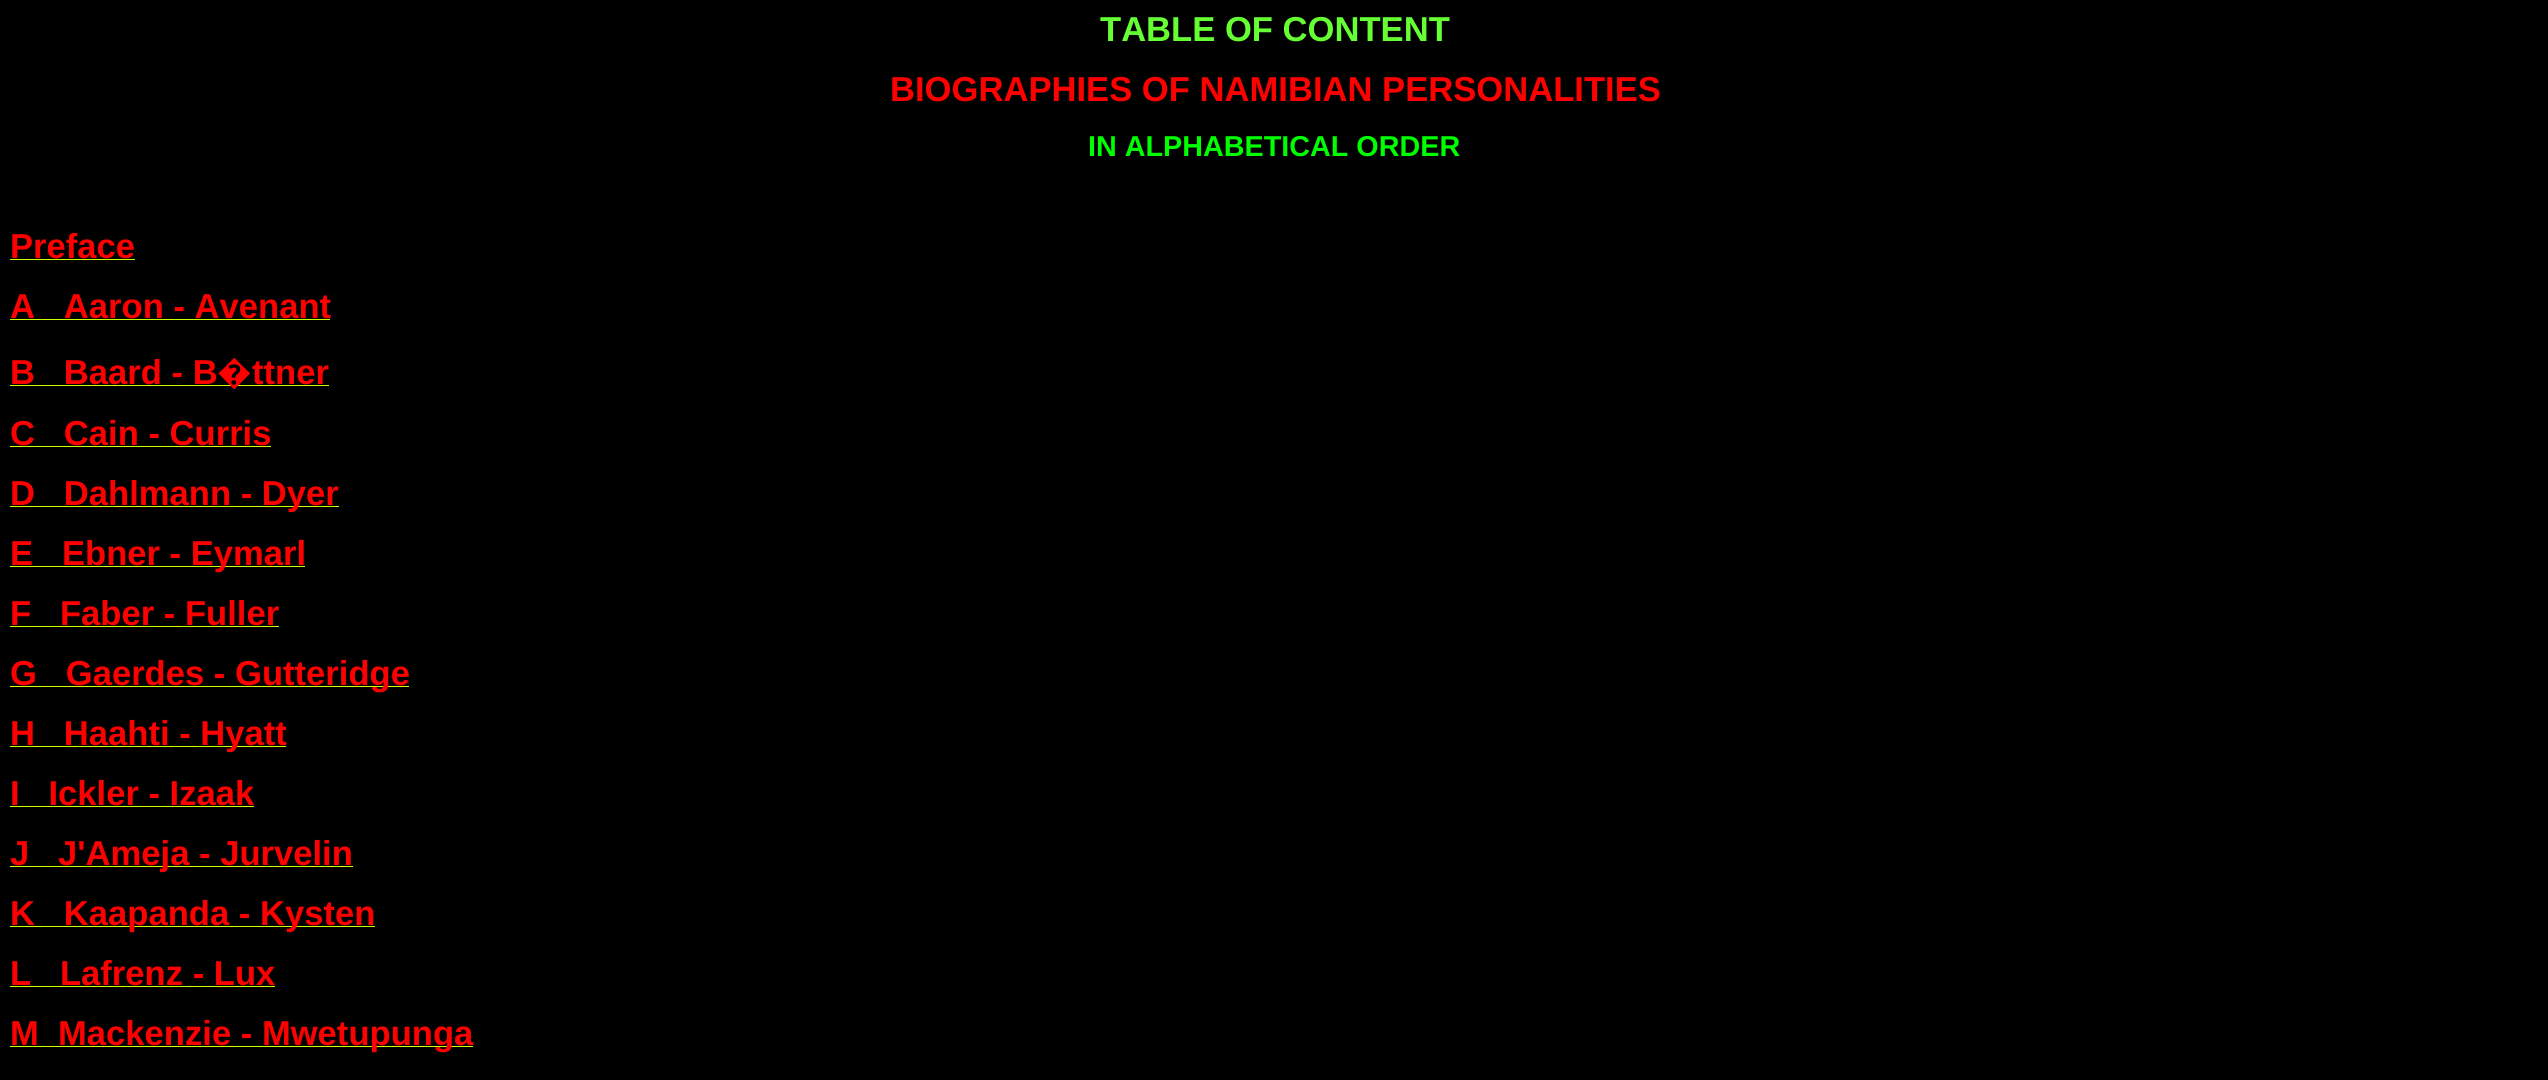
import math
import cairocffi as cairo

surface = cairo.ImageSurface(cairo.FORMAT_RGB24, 2548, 1080)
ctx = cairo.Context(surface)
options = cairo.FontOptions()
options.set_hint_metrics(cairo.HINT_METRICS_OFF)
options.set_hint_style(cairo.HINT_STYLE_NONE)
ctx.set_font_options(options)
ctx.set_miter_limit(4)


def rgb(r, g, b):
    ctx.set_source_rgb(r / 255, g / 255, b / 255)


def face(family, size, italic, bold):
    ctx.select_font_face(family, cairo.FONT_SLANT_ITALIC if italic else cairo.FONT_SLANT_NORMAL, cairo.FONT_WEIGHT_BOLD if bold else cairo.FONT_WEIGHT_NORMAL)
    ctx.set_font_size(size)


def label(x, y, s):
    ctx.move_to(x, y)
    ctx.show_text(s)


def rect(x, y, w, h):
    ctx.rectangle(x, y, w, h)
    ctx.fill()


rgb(0, 0, 0)
ctx.paint()
face('Liberation Sans', 34.6, 0, 1)
rgb(102, 255, 51)
label(1100, 41, 'TABLE OF CONTENT')
rgb(255, 0, 0)
label(890, 101, 'BIOGRAPHIES OF NAMIBIAN PERSONALITIES')
face('Liberation Sans', 28.75, 0, 1)
rgb(0, 255, 0)
label(1088, 156, 'IN ALPHABETICAL ORDER')
face('Liberation Sans', 34.6, 0, 1)
rgb(255, 0, 0)
label(10, 258, 'Preface')
rgb(204, 255, 0)
rect(10, 259, 125, 1)
rgb(255, 0, 0)
label(10, 318, 'A   Aaron - Avenant')
rgb(204, 255, 0)
rect(10, 319, 320, 1)
rgb(255, 0, 0)
label(10, 384, 'B   Baard - B')
rgb(204, 255, 0)
rect(10, 385, 319, 1)
face('Noto Sans', 34.6, 0, 1)
rgb(255, 0, 0)
label(217, 384, '�')
face('Liberation Sans', 34.6, 0, 1)
label(252, 384, 'ttner')
label(10, 445, 'C   Cain - Curris')
rgb(204, 255, 0)
rect(10, 446, 261, 1)
rect(10, 506, 329, 1)
rgb(255, 0, 0)
label(10, 505, 'D   Dahlmann - Dyer')
rgb(204, 255, 0)
rect(10, 566, 295, 1)
rgb(255, 0, 0)
label(10, 565, 'E   Ebner - Eymarl')
label(10, 625, 'F   Faber - Fuller')
rgb(204, 255, 0)
rect(10, 626, 269, 1)
rect(10, 686, 399, 1)
rgb(255, 0, 0)
label(10, 685, 'G   Gaerdes - Gutteridge')
rgb(204, 255, 0)
rect(10, 746, 276, 1)
rgb(255, 0, 0)
label(10, 745, 'H   Haahti - Hyatt')
label(10, 805, 'I   Ickler - Izaak')
rgb(204, 255, 0)
rect(10, 806, 244, 1)
rect(10, 866, 343, 1)
rgb(255, 0, 0)
label(10, 865, 'J   J\'Ameja - Jurvelin')
rgb(204, 255, 0)
rect(10, 926, 365, 1)
rgb(255, 0, 0)
label(10, 925, 'K   Kaapanda - Kysten')
label(10, 985, 'L   Lafrenz - Lux')
rgb(204, 255, 0)
rect(10, 986, 265, 1)
rect(10, 1046, 463, 1)
rgb(255, 0, 0)
label(10, 1045, 'M  Mackenzie - Mwetupunga')
surface.write_to_png('render.png')
